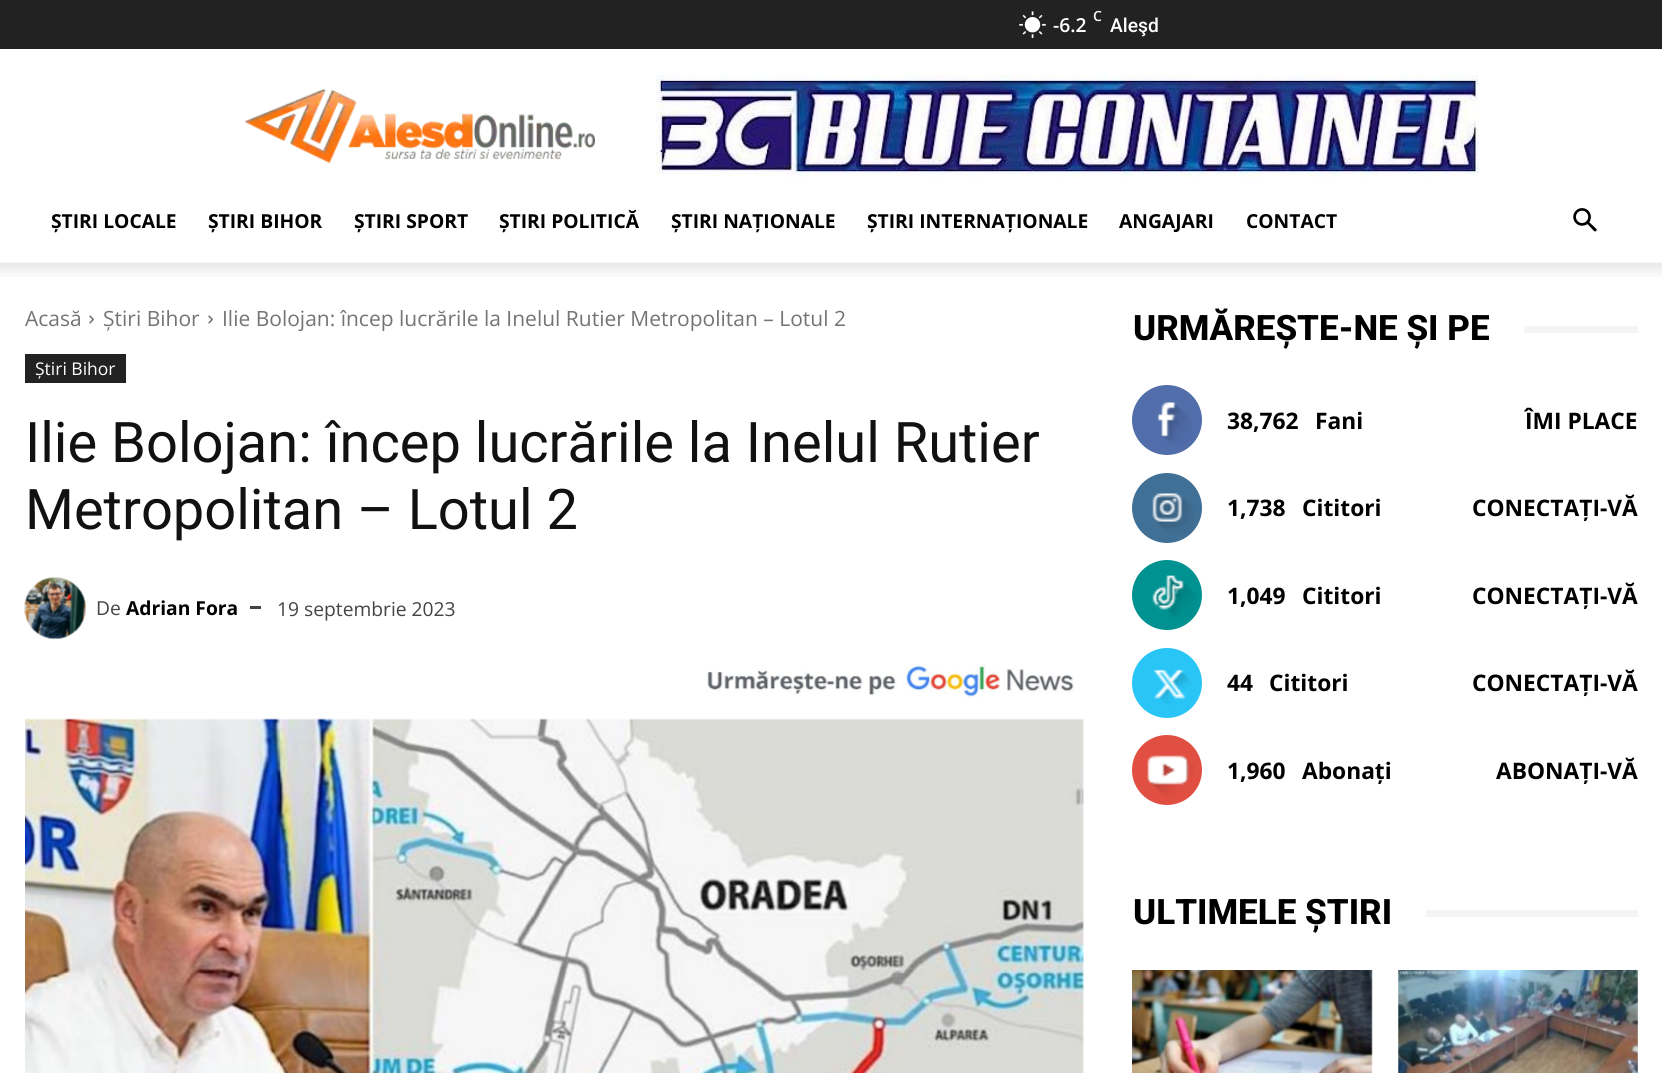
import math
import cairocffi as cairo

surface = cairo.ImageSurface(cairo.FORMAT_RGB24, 1662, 1073)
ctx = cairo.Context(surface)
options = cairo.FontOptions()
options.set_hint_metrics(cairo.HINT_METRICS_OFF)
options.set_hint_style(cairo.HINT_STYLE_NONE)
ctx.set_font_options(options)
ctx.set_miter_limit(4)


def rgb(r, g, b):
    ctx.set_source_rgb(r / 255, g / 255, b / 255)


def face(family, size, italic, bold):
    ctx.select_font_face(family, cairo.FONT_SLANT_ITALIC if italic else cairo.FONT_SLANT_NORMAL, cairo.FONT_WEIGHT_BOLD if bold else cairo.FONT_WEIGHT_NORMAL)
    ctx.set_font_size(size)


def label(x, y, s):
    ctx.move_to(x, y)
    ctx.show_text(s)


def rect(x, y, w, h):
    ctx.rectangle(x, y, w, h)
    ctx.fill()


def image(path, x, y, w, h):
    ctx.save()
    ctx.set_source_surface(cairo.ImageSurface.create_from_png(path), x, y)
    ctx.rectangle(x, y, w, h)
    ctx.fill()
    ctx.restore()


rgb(255, 255, 255)
ctx.paint()
rgb(34, 34, 34)
rect(0, 0, 1662, 49)
image('image0.png', 1019, 11, 27, 27)
face('Open Sans SemiBold', 14, 0, 0)
rgb(255, 255, 255)
label(1093, 21, 'C')
face('Open Sans SemiBold', 19.25, 0, 0)
label(1053, 32, '-6.2')
face('Roboto Medium', 19.25, 0, 0)
label(1110, 32, 'Aleşd')
image('image1.png', 245, 88, 350, 76)
image('image2.png', 656, 75, 823, 102)
face('Open Sans', 19.25, 0, 1)
rgb(0, 0, 0)
label(51, 228, 'ȘTIRI LOCALE')
label(208, 228, 'ȘTIRI BIHOR')
label(354, 228, 'ȘTIRI SPORT')
label(499, 228, 'ȘTIRI POLITICĂ')
label(671, 228, 'ȘTIRI NAȚIONALE')
label(867, 228, 'ȘTIRI INTERNAȚIONALE')
label(1119, 228, 'ANGAJARI')
label(1246, 228, 'CONTACT')
image('image3.png', 1573, 208, 24, 24)
image('image4.png', 0, 262, 1662, 15)
face('Open Sans', 21, 0, 0)
rgb(116, 116, 116)
label(25, 326, 'Acasă')
image('image5.png', 89, 315, 5, 9)
label(103, 326, 'Știri Bihor')
image('image5.png', 208, 315, 5, 9)
label(222, 326, 'Ilie Bolojan: încep lucrările la Inelul Rutier Metropolitan – Lotul 2')
rgb(34, 34, 34)
rect(25, 354, 101, 29)
face('Open Sans', 17.5, 0, 0)
rgb(255, 255, 255)
label(35, 375, 'Știri Bihor')
face('Roboto', 56, 0, 0)
rgb(17, 17, 17)
label(25, 462, 'Ilie Bolojan: încep lucrările la Inelul Rutier')
label(25, 529, 'Metropolitan – Lotul 2')
image('image6.png', 24, 577, 62, 63)
face('Open Sans', 19.25, 0, 0)
rgb(68, 68, 68)
label(96, 615, 'De')
face('Open Sans', 19.25, 0, 1)
rgb(0, 0, 0)
label(126, 615, 'Adrian Fora')
rgb(68, 68, 68)
rect(250, 606, 11, 3)
face('Open Sans', 19.25, 0, 0)
label(277, 616, '19 septembrie 2023')
image('image7.png', 707, 664, 367, 35)
image('image8.png', 25, 718, 1059, 355)
face('Roboto ExtraBold', 35, 0, 0)
rgb(0, 0, 0)
label(1133, 340, 'URMĂREȘTE-NE ȘI PE')
rgb(245, 245, 245)
rect(1524, 326, 114, 7)
rgb(81, 110, 171)
ctx.new_path()
ctx.arc(1167, 420, 35, 0, 2 * math.pi)
ctx.fill()
image('image9.png', 1157, 402, 36, 43)
face('Open Sans', 22.75, 0, 1)
rgb(0, 0, 0)
label(1227, 429, '38,762')
label(1315, 429, 'Fani')
label(1525, 429, 'ÎMI PLACE')
rgb(65, 112, 150)
ctx.new_path()
ctx.arc(1167, 508, 35, 0, 2 * math.pi)
ctx.fill()
image('image10.png', 1152, 493, 42, 41)
rgb(0, 0, 0)
label(1227, 516, '1,738')
label(1302, 516, 'Cititori')
label(1472, 516, 'CONECTAȚI-VĂ')
rgb(0, 145, 145)
ctx.new_path()
ctx.arc(1167, 595, 35, 0, 2 * math.pi)
ctx.fill()
image('image11.png', 1152, 575, 44, 43)
rgb(0, 0, 0)
label(1227, 604, '1,049')
label(1302, 604, 'Cititori')
label(1472, 604, 'CONECTAȚI-VĂ')
rgb(41, 197, 246)
ctx.new_path()
ctx.arc(1167, 683, 35, 0, 2 * math.pi)
ctx.fill()
image('image12.png', 1153, 669, 39, 37)
rgb(0, 0, 0)
label(1227, 691, '44')
label(1269, 691, 'Cititori')
label(1472, 691, 'CONECTAȚI-VĂ')
rgb(225, 78, 66)
ctx.new_path()
ctx.arc(1167, 770, 35, 0, 2 * math.pi)
ctx.fill()
image('image13.png', 1147, 755, 48, 42)
rgb(0, 0, 0)
label(1227, 779, '1,960')
label(1302, 779, 'Abonați')
label(1496, 779, 'ABONAȚI-VĂ')
face('Roboto ExtraBold', 35, 0, 0)
label(1133, 924, 'ULTIMELE ȘTIRI')
rgb(245, 245, 245)
rect(1426, 910, 212, 7)
image('image14.png', 1132, 970, 241, 103)
image('image15.png', 1398, 970, 240, 103)
surface.write_to_png('render.png')
